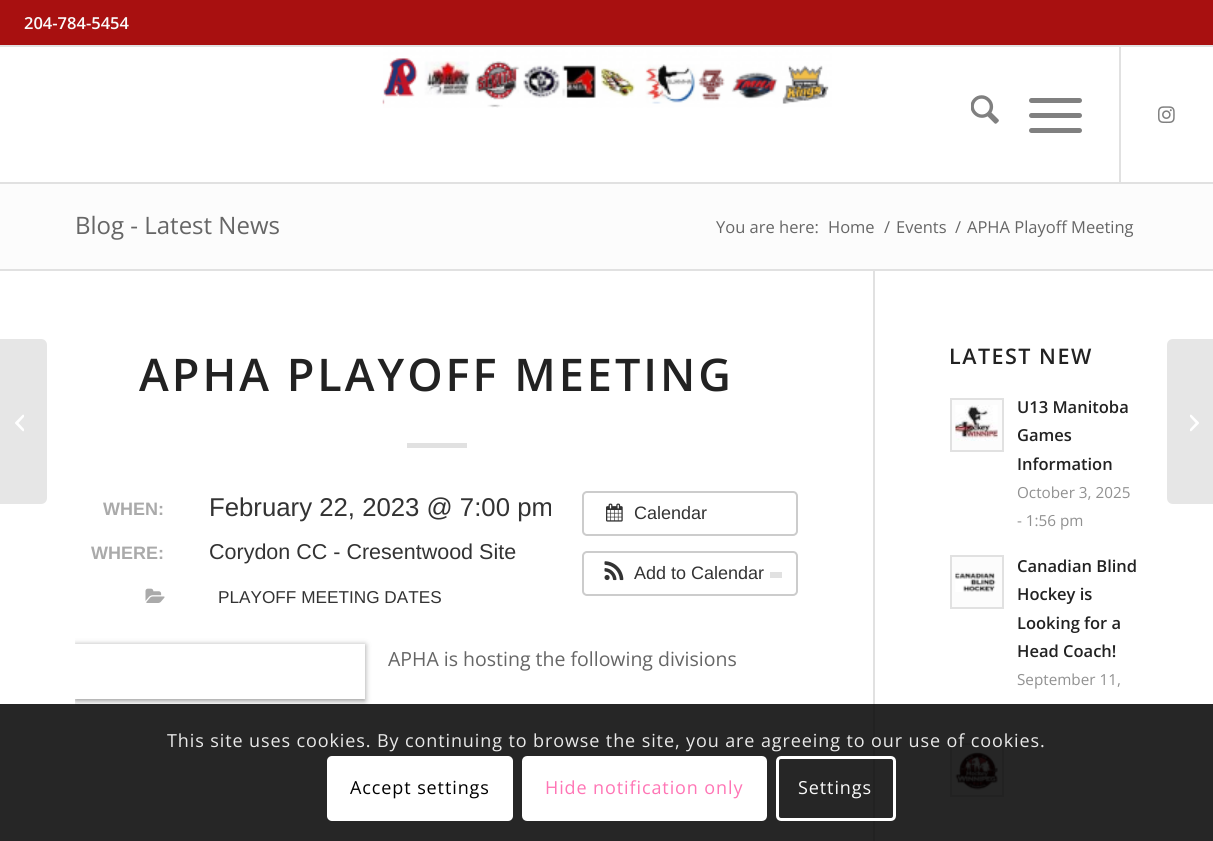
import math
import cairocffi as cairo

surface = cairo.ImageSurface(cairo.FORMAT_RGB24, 1213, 841)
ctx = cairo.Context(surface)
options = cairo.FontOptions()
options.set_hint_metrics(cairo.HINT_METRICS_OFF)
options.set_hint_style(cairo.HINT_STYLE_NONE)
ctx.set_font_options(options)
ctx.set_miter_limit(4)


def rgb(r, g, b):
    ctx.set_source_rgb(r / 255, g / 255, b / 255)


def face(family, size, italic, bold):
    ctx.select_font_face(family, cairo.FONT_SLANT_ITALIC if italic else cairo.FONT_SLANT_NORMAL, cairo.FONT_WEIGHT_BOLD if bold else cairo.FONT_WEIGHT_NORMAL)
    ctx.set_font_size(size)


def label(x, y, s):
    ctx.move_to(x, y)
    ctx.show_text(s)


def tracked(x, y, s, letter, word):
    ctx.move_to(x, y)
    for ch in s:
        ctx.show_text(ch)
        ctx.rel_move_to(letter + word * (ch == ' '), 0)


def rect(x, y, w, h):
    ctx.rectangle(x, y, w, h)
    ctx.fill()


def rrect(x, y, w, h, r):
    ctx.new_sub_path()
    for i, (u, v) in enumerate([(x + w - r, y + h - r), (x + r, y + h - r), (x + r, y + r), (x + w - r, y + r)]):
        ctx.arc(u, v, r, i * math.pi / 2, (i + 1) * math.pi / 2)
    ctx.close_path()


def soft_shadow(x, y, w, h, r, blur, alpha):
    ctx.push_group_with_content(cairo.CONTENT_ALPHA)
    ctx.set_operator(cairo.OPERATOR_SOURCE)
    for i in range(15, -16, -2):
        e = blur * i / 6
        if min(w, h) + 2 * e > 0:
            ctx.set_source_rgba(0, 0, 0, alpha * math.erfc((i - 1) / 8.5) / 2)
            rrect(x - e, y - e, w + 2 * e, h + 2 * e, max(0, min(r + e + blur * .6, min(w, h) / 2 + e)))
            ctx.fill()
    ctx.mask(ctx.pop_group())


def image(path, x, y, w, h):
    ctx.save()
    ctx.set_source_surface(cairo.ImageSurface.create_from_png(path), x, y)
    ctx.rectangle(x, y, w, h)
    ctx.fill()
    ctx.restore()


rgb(255, 255, 255)
ctx.paint()
rgb(168, 16, 16)
rect(0, 0, 1213, 45)
rgb(225, 225, 225)
rect(0, 45, 1213, 2)
face('Open Sans SemiBold', 16.5, 0, 0)
rgb(250, 250, 250)
label(24, 29, '204-784-5454')
rgb(225, 225, 225)
rect(0, 182, 1213, 2)
image('image0.png', 382, 47, 450, 61)
rect(1119, 47, 2, 135)
image('image1.png', 971, 95, 28, 29)
rgb(128, 128, 128)
rrect(1029, 113, 53, 5, 2.5)
ctx.fill()
rrect(1029, 98, 53, 5, 2.5)
ctx.fill()
rrect(1029, 128, 53, 5, 2.5)
ctx.fill()
image('image2.png', 1158, 106, 17, 18)
rgb(230, 230, 230)
ctx.new_path()
ctx.move_to(0, 339)
ctx.line_to(41, 339)
ctx.curve_to(44.5, 339, 47, 341.5, 47, 345)
ctx.line_to(47, 498)
ctx.curve_to(47, 501.5, 44.5, 504, 41, 504)
ctx.line_to(0, 504)
ctx.close_path()
ctx.fill()
image('image3.png', 15, 414, 9, 18)
rgb(252, 252, 252)
rect(0, 184, 1213, 85)
face('Open Sans', 24, 0, 0)
rgb(102, 102, 102)
label(75, 234, 'Blog - Latest News')
face('Open Sans', 16.5, 0, 0)
label(716, 233, 'You are here:')
label(828, 233, 'Home')
label(884, 233, '/')
label(896, 233, 'Events')
label(955, 233, '/')
label(967, 233, 'APHA Playoff Meeting')
rgb(225, 225, 225)
rect(0, 269, 1213, 2)
rect(873, 270, 2, 571)
face('Open Sans SemiBold', 45, 0, 0)
rgb(34, 34, 34)
tracked(139, 391, 'APHA PLAYOFF MEETING', 3, 0)
rgb(225, 225, 225)
rect(407, 443, 60, 5)
face('Liberation Sans', 18, 0, 1)
rgb(170, 170, 170)
label(103, 515, 'WHEN:')
face('Liberation Sans', 25.75, 0, 0)
rgb(51, 51, 51)
label(209, 516, 'February 22, 2023 @ 7:00 pm')
face('Liberation Sans', 18, 0, 1)
rgb(170, 170, 170)
label(91, 559, 'WHERE:')
face('Liberation Sans', 21.5, 0, 0)
rgb(51, 51, 51)
label(209, 559, 'Corydon CC - Cresentwood Site')
image('image4.png', 145, 588, 20, 15)
face('Liberation Sans', 17.2, 0, 0)
label(218, 603, 'PLAYOFF MEETING DATES')
rrect(583, 492, 214, 43, 4)
rgb(204, 204, 204)
ctx.stroke()
image('image5.png', 606, 503, 17, 19)
face('Liberation Sans', 18, 0, 0)
rgb(51, 51, 51)
label(634, 519, 'Calendar')
rrect(583, 552, 214, 43, 4)
rgb(204, 204, 204)
ctx.stroke()
image('image6.png', 604, 561, 20, 20)
rgb(51, 51, 51)
label(634, 579, 'Add to Calendar')
rgb(225, 225, 225)
rect(770, 572, 12, 6)
ctx.save()
ctx.rectangle(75, 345, 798, 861)
ctx.clip()
rgb(0, 0, 0)
soft_shadow(75, 645, 290, 56, 0, 3, 0.4)
ctx.restore()
rgb(255, 255, 255)
rect(75, 644, 290, 55)
face('Open Sans', 19.5, 0, 0)
rgb(102, 102, 102)
label(388, 666, 'APHA is hosting the following divisions')
face('Open Sans SemiBold', 21.5, 0, 0)
rgb(34, 34, 34)
tracked(949, 364, 'LATEST NEW', 1.5, 0)
rgb(252, 252, 252)
ctx.rectangle(951, 399, 52, 52)
ctx.fill_preserve()
rgb(225, 225, 225)
ctx.stroke()
image('image7.png', 955, 405, 43, 36)
face('Open Sans SemiBold', 16.5, 0, 0)
rgb(34, 34, 34)
label(1017, 413, 'U13 Manitoba')
label(1017, 441, 'Games')
label(1017, 470, 'Information')
face('Open Sans', 15.25, 0, 0)
rgb(145, 145, 145)
label(1017, 498, 'October 3, 2025')
label(1017, 526, '- 1:56 pm')
rgb(252, 252, 252)
ctx.rectangle(951, 556, 52, 52)
ctx.fill_preserve()
rgb(225, 225, 225)
ctx.stroke()
image('image8.png', 955, 572, 41, 20)
face('Open Sans SemiBold', 16.5, 0, 0)
rgb(34, 34, 34)
label(1017, 572, 'Canadian Blind')
label(1017, 600, 'Hockey is')
label(1017, 629, 'Looking for a')
label(1017, 657, 'Head Coach!')
face('Open Sans', 15.25, 0, 0)
rgb(145, 145, 145)
label(1017, 685, 'September 11,')
rgb(252, 252, 252)
ctx.rectangle(951, 744, 52, 52)
ctx.fill_preserve()
rgb(225, 225, 225)
ctx.stroke()
image('image9.png', 955, 748, 43, 42)
rgb(230, 230, 230)
ctx.new_path()
ctx.move_to(1173, 339)
ctx.line_to(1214, 339)
ctx.line_to(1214, 504)
ctx.line_to(1173, 504)
ctx.curve_to(1169.5, 504, 1167, 501.5, 1167, 498)
ctx.line_to(1167, 345)
ctx.curve_to(1167, 341.5, 1169.5, 339, 1173, 339)
ctx.close_path()
ctx.fill()
image('image10.png', 1190, 414, 9, 18)
ctx.set_source_rgba(0, 0, 0, 0.85)
rect(0, 704, 1213, 137)
face('Open Sans', 18, 0, 0)
rgb(233, 233, 233)
tracked(167, 747, 'This site uses cookies. By continuing to browse the site, you are agreeing to our use of cookies.', 0.9, 0)
rgb(255, 255, 255)
rrect(327, 756, 186, 65, 5)
ctx.fill()
rgb(0, 0, 0)
tracked(350, 794, 'Accept settings', 0.9, 0)
rgb(255, 255, 255)
rrect(523.5, 757.5, 242, 62, 3.5)
ctx.fill_preserve()
ctx.set_line_width(3)
ctx.stroke()
rgb(255, 117, 181)
tracked(545, 794, 'Hide notification only', 0.9, 0)
rrect(777.5, 757.5, 117, 62, 3.5)
rgb(255, 255, 255)
ctx.stroke()
rgb(250, 250, 250)
tracked(798, 794, 'Settings', 0.9, 0)
surface.write_to_png('render.png')
